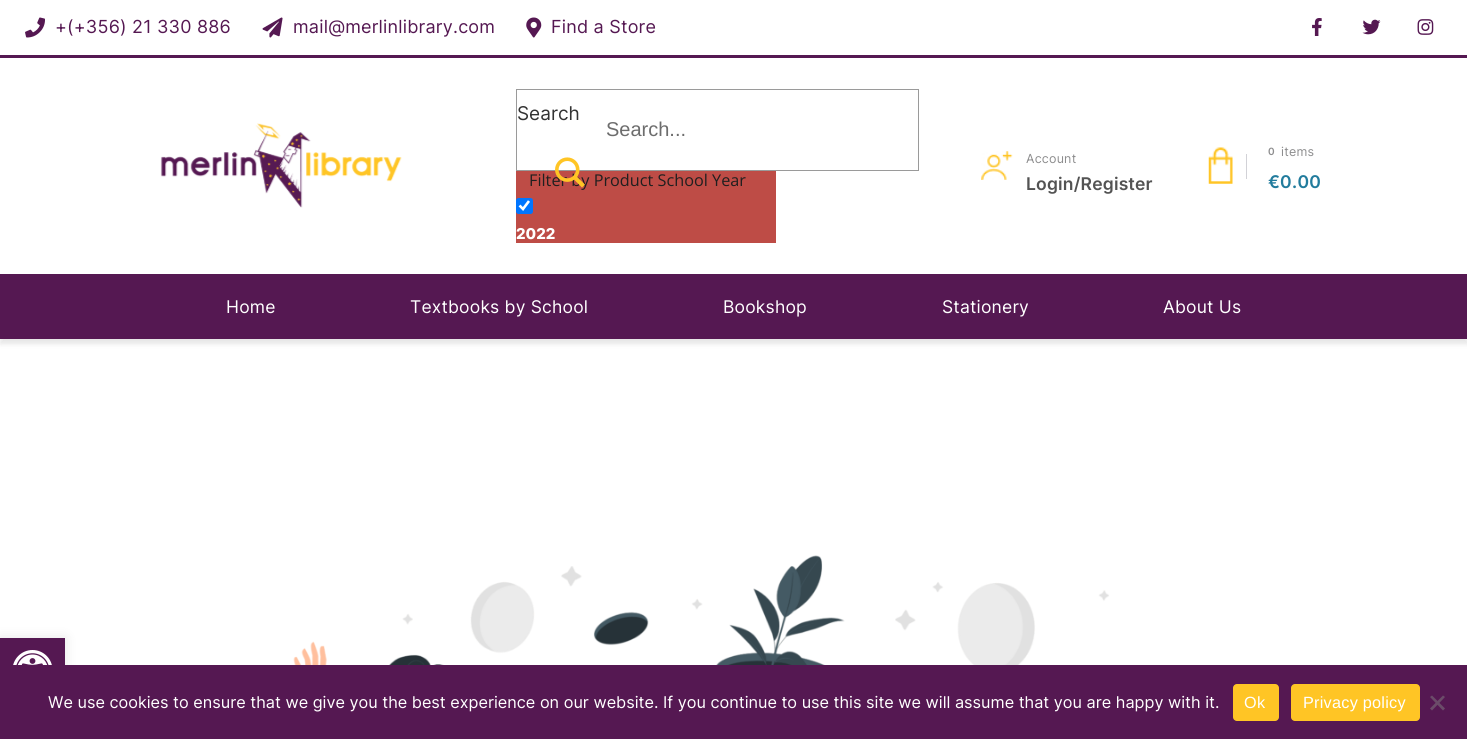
import math
import cairocffi as cairo

surface = cairo.ImageSurface(cairo.FORMAT_RGB24, 1467, 739)
ctx = cairo.Context(surface)
options = cairo.FontOptions()
options.set_hint_metrics(cairo.HINT_METRICS_OFF)
options.set_hint_style(cairo.HINT_STYLE_NONE)
ctx.set_font_options(options)
ctx.set_miter_limit(4)


def rgb(r, g, b):
    ctx.set_source_rgb(r / 255, g / 255, b / 255)


def face(family, size, italic, bold):
    ctx.select_font_face(family, cairo.FONT_SLANT_ITALIC if italic else cairo.FONT_SLANT_NORMAL, cairo.FONT_WEIGHT_BOLD if bold else cairo.FONT_WEIGHT_NORMAL)
    ctx.set_font_size(size)


def label(x, y, s):
    ctx.move_to(x, y)
    ctx.show_text(s)


def tracked(x, y, s, letter, word):
    ctx.move_to(x, y)
    for ch in s:
        ctx.show_text(ch)
        ctx.rel_move_to(letter + word * (ch == ' '), 0)


def rect(x, y, w, h):
    ctx.rectangle(x, y, w, h)
    ctx.fill()


def rrect(x, y, w, h, r):
    ctx.new_sub_path()
    for i, (u, v) in enumerate([(x + w - r, y + h - r), (x + r, y + h - r), (x + r, y + r), (x + w - r, y + r)]):
        ctx.arc(u, v, r, i * math.pi / 2, (i + 1) * math.pi / 2)
    ctx.close_path()


def soft_shadow(x, y, w, h, r, blur, alpha):
    ctx.push_group_with_content(cairo.CONTENT_ALPHA)
    ctx.set_operator(cairo.OPERATOR_SOURCE)
    for i in range(15, -16, -2):
        e = blur * i / 6
        if min(w, h) + 2 * e > 0:
            ctx.set_source_rgba(0, 0, 0, alpha * math.erfc((i - 1) / 8.5) / 2)
            rrect(x - e, y - e, w + 2 * e, h + 2 * e, max(0, min(r + e + blur * .6, min(w, h) / 2 + e)))
            ctx.fill()
    ctx.mask(ctx.pop_group())


def image(path, x, y, w, h):
    ctx.save()
    ctx.set_source_surface(cairo.ImageSurface.create_from_png(path), x, y)
    ctx.rectangle(x, y, w, h)
    ctx.fill()
    ctx.restore()


rgb(255, 255, 255)
ctx.paint()
rgb(85, 24, 82)
rect(0, 55, 1467, 3)
image('image0.png', 25, 17, 20, 21)
face('Inter', 18, 0, 0)
tracked(55, 33, '+(+356) 21 330 886', 0.2, 0)
image('image1.png', 262, 17, 21, 21)
tracked(293, 33, 'mail@merlinlibrary.com', 0.2, 0)
image('image2.png', 526, 17, 16, 21)
tracked(551, 33, 'Find a Store', 0.2, 0)
image('image3.png', 1312, 18, 10, 18)
image('image4.png', 1362, 19, 19, 16)
image('image5.png', 1417, 19, 17, 16)
image('image6.png', 160, 123, 242, 85)
ctx.rectangle(516.5, 89.5, 402, 81)
rgb(154, 154, 154)
ctx.set_line_width(1)
ctx.stroke()
face('Inter', 19, 0, 0)
rgb(51, 51, 51)
label(517, 120, 'Search')
rgb(190, 76, 70)
rect(516, 171, 260, 72)
face('Open Sans', 16.25, 0, 0)
rgb(31, 31, 31)
label(529, 186, 'Filter by Product School Year')
image('image7.png', 555, 157, 30, 31)
face('Liberation Sans', 20, 0, 0)
rgb(109, 109, 109)
label(606, 136, 'Search...')
rgb(0, 117, 255)
rrect(516, 198, 17, 16, 2.5)
ctx.fill()
ctx.new_path()
ctx.move_to(519.5, 205.5)
ctx.line_to(523, 209)
ctx.line_to(529, 201)
rgb(255, 255, 255)
ctx.set_line_width(2.6)
ctx.stroke()
face('Inter ExtraBold', 15, 0, 0)
label(516, 239, '2022')
image('image8.png', 981, 151, 32, 29)
face('Inter', 12.5, 0, 0)
rgb(142, 142, 143)
tracked(1026, 163, 'Account', 0.2, 0)
face('Inter SemiBold', 17.5, 0, 0)
rgb(83, 83, 83)
tracked(1026, 190, 'Login/Register', 0.2, 0)
rgb(210, 210, 215)
rect(1246, 154, 1, 25)
image('image9.png', 1208, 147, 25, 37)
face('Inter SemiBold', 10, 0, 0)
rgb(142, 142, 143)
tracked(1268, 155, '0', 0.2, 0)
face('Inter', 12.5, 0, 0)
tracked(1281, 156, 'items', 0.2, 0)
face('Inter SemiBold', 17.5, 0, 0)
rgb(34, 124, 157)
tracked(1268, 188, '€0.00', 0.2, 0)
rgb(0, 0, 0)
soft_shadow(0, 279, 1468, 65, 0, 2.5, 0.1)
rgb(85, 24, 82)
rect(0, 274, 1467, 65)
face('Inter', 17.5, 0, 0)
rgb(255, 255, 255)
tracked(226, 313, 'Home', 0.2, 0)
tracked(410, 313, 'Textbooks by School', 0.2, 0)
tracked(723, 313, 'Bookshop', 0.2, 0)
tracked(942, 313, 'Stationery', 0.2, 0)
tracked(1163, 313, 'About Us', 0.2, 0)
rgb(0, 0, 0)
soft_shadow(0, 638, 65, 65, 0, 6, 0.1)
rgb(85, 24, 82)
rect(0, 638, 65, 27)
image('image10.png', 13, 650, 39, 15)
image('image11.png', 293, 555, 817, 110)
rect(0, 665, 1467, 74)
face('Inter', 16.25, 0, 0)
rgb(255, 255, 255)
label(48, 708, 'We use cookies to ensure that we give you the best experience on our website. If you continue to use this site we will assume that you are happy with it.')
rgb(255, 197, 37)
rrect(1233, 684, 46, 37, 4)
ctx.fill()
face('Liberation Sans', 16.25, 0, 0)
rgb(255, 255, 255)
tracked(1244, 708, 'Ok', 0.25, 0)
rgb(255, 197, 37)
rrect(1291, 684, 129, 37, 4)
ctx.fill()
rgb(255, 255, 255)
tracked(1303, 708, 'Privacy policy', 0.25, 0)
rgb(107, 76, 105)
ctx.new_path()
ctx.move_to(1443, 695.5)
ctx.line_to(1445, 697)
ctx.line_to(1432, 710.5)
ctx.line_to(1430, 708.5)
ctx.close_path()
ctx.fill()
ctx.new_path()
ctx.move_to(1430, 697)
ctx.line_to(1432, 695.5)
ctx.line_to(1445, 708.5)
ctx.line_to(1443, 710.5)
ctx.close_path()
ctx.fill()
surface.write_to_png('render.png')
